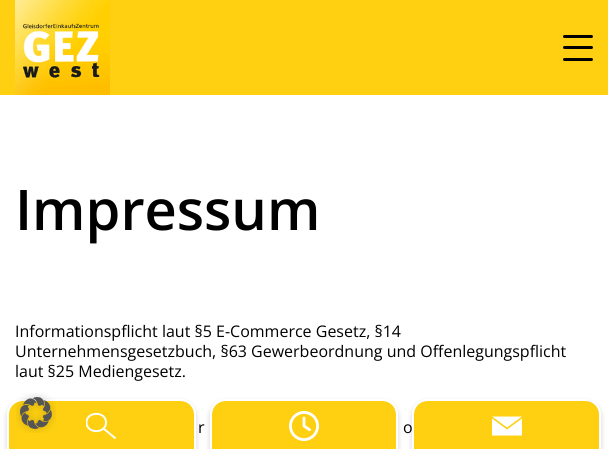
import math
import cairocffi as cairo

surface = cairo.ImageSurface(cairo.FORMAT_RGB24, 608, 449)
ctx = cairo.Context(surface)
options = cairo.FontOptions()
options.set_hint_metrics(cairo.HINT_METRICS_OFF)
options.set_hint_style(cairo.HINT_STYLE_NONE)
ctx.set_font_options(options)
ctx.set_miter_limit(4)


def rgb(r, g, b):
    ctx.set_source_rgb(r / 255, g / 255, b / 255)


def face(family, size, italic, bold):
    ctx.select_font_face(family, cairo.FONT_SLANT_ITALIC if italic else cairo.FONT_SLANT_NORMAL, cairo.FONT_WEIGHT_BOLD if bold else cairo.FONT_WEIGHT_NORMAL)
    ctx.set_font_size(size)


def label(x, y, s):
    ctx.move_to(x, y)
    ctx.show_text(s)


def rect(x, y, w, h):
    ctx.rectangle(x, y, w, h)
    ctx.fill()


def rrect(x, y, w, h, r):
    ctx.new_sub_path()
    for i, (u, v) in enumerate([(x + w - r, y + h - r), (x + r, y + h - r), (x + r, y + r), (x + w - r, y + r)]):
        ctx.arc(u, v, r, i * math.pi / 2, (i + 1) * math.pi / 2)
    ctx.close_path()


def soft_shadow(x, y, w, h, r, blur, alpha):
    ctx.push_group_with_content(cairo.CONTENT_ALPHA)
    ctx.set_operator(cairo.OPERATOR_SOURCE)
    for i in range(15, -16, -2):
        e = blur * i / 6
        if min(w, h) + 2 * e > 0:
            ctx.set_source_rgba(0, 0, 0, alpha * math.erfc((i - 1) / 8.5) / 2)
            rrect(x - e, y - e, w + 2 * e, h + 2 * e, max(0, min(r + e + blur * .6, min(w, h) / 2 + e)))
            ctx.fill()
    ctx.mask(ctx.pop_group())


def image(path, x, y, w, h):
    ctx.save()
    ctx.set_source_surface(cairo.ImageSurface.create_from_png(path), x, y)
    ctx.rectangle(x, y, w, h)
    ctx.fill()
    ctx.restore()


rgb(255, 255, 255)
ctx.paint()
rgb(254, 208, 17)
rect(0, 0, 608, 95)
image('image0.png', 15, 0, 95, 95)
rgb(0, 0, 0)
rrect(563, 35, 30, 3, 1.5)
ctx.fill()
rrect(563, 46, 30, 3, 1.5)
ctx.fill()
rrect(563, 58, 30, 3, 1.5)
ctx.fill()
rgb(0, 0, 0)
soft_shadow(7, 402, 189, 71, 15, 3, 0.16)
rgb(254, 208, 17)
ctx.new_path()
ctx.move_to(22, 401)
ctx.line_to(181, 401)
ctx.curve_to(188, 401, 194, 407, 194, 414)
ctx.line_to(194, 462)
ctx.line_to(9, 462)
ctx.line_to(9, 414)
ctx.curve_to(9, 407, 15, 401, 22, 401)
ctx.close_path()
ctx.fill()
rgb(255, 255, 255)
ctx.set_fill_rule(cairo.FILL_RULE_EVEN_ODD)
ctx.new_path()
ctx.move_to(22, 399)
ctx.line_to(181, 399)
ctx.curve_to(189, 399, 196, 406, 196, 414)
ctx.line_to(196, 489)
ctx.line_to(7, 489)
ctx.line_to(7, 414)
ctx.curve_to(7, 406, 14, 399, 22, 399)
ctx.close_path()
ctx.move_to(22, 401)
ctx.line_to(181, 401)
ctx.curve_to(188, 401, 194, 407, 194, 414)
ctx.line_to(194, 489)
ctx.line_to(9, 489)
ctx.line_to(9, 414)
ctx.curve_to(9, 407, 15, 401, 22, 401)
ctx.close_path()
ctx.fill()
ctx.save()
ctx.set_fill_rule(cairo.FILL_RULE_WINDING)
ctx.rectangle(86, 411, 30, 30)
ctx.clip()
ctx.new_path()
ctx.move_to(106, 422.5)
ctx.curve_to(106, 434, 86.5, 434, 86.5, 422.5)
ctx.curve_to(86.5, 411, 106, 411, 106, 422.5)
ctx.close_path()
ctx.set_line_width(1.9)
ctx.set_line_cap(cairo.LINE_CAP_ROUND)
ctx.set_line_join(cairo.LINE_JOIN_ROUND)
ctx.stroke()
ctx.restore()
ctx.new_path()
ctx.move_to(115, 438)
ctx.line_to(104, 429)
ctx.set_line_width(1.9)
ctx.set_line_cap(cairo.LINE_CAP_ROUND)
ctx.set_line_join(cairo.LINE_JOIN_ROUND)
ctx.stroke()
rgb(0, 0, 0)
soft_shadow(210, 402, 188, 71, 15, 3, 0.16)
rgb(254, 208, 17)
ctx.new_path()
ctx.move_to(225, 401)
ctx.line_to(383, 401)
ctx.curve_to(390, 401, 396, 407, 396, 414)
ctx.line_to(396, 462)
ctx.line_to(212, 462)
ctx.line_to(212, 414)
ctx.curve_to(212, 407, 218, 401, 225, 401)
ctx.close_path()
ctx.fill()
rgb(255, 255, 255)
ctx.new_path()
ctx.move_to(225, 399)
ctx.line_to(383, 399)
ctx.curve_to(391, 399, 398, 406, 398, 414)
ctx.line_to(398, 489)
ctx.line_to(210, 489)
ctx.line_to(210, 414)
ctx.curve_to(210, 406, 217, 399, 225, 399)
ctx.close_path()
ctx.move_to(225, 401)
ctx.line_to(383, 401)
ctx.curve_to(390, 401, 396, 407, 396, 414)
ctx.line_to(396, 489)
ctx.line_to(212, 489)
ctx.line_to(212, 414)
ctx.curve_to(212, 407, 218, 401, 225, 401)
ctx.close_path()
ctx.fill()
image('image1.png', 289, 411, 30, 30)
rgb(0, 0, 0)
soft_shadow(412, 402, 189, 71, 15, 3, 0.16)
rgb(254, 208, 17)
ctx.new_path()
ctx.move_to(427, 401)
ctx.line_to(586, 401)
ctx.curve_to(593, 401, 599, 407, 599, 414)
ctx.line_to(599, 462)
ctx.line_to(414, 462)
ctx.line_to(414, 414)
ctx.curve_to(414, 407, 420, 401, 427, 401)
ctx.close_path()
ctx.fill()
rgb(255, 255, 255)
ctx.new_path()
ctx.move_to(427, 399)
ctx.line_to(586, 399)
ctx.curve_to(594, 399, 601, 406, 601, 414)
ctx.line_to(601, 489)
ctx.line_to(412, 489)
ctx.line_to(412, 414)
ctx.curve_to(412, 406, 419, 399, 427, 399)
ctx.close_path()
ctx.move_to(427, 401)
ctx.line_to(586, 401)
ctx.curve_to(593, 401, 599, 407, 599, 414)
ctx.line_to(599, 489)
ctx.line_to(414, 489)
ctx.line_to(414, 414)
ctx.curve_to(414, 407, 420, 401, 427, 401)
ctx.close_path()
ctx.fill()
ctx.set_fill_rule(cairo.FILL_RULE_WINDING)
ctx.new_path()
ctx.move_to(492, 416.5)
ctx.line_to(507, 427.5)
ctx.line_to(522, 416.5)
ctx.close_path()
ctx.move_to(492, 418.5)
ctx.line_to(492, 435.5)
ctx.line_to(522, 435.5)
ctx.line_to(522, 418.5)
ctx.line_to(507, 429.5)
ctx.close_path()
ctx.fill()
face('Open Sans SemiBold', 56, 0, 0)
rgb(0, 0, 0)
label(15, 230, 'Impressum')
face('Open Sans', 16, 0, 0)
label(15, 337, 'Informationspflicht laut §5 E-Commerce Gesetz, §14')
label(15, 357, 'Unternehmensgesetzbuch, §63 Gewerbeordnung und Offenlegungspflicht')
label(15, 377, 'laut §25 Mediengesetz.')
label(198, 433, 'r')
label(403, 433, 'o')
image('image2.png', 16, 393, 40, 40)
surface.write_to_png('render.png')
